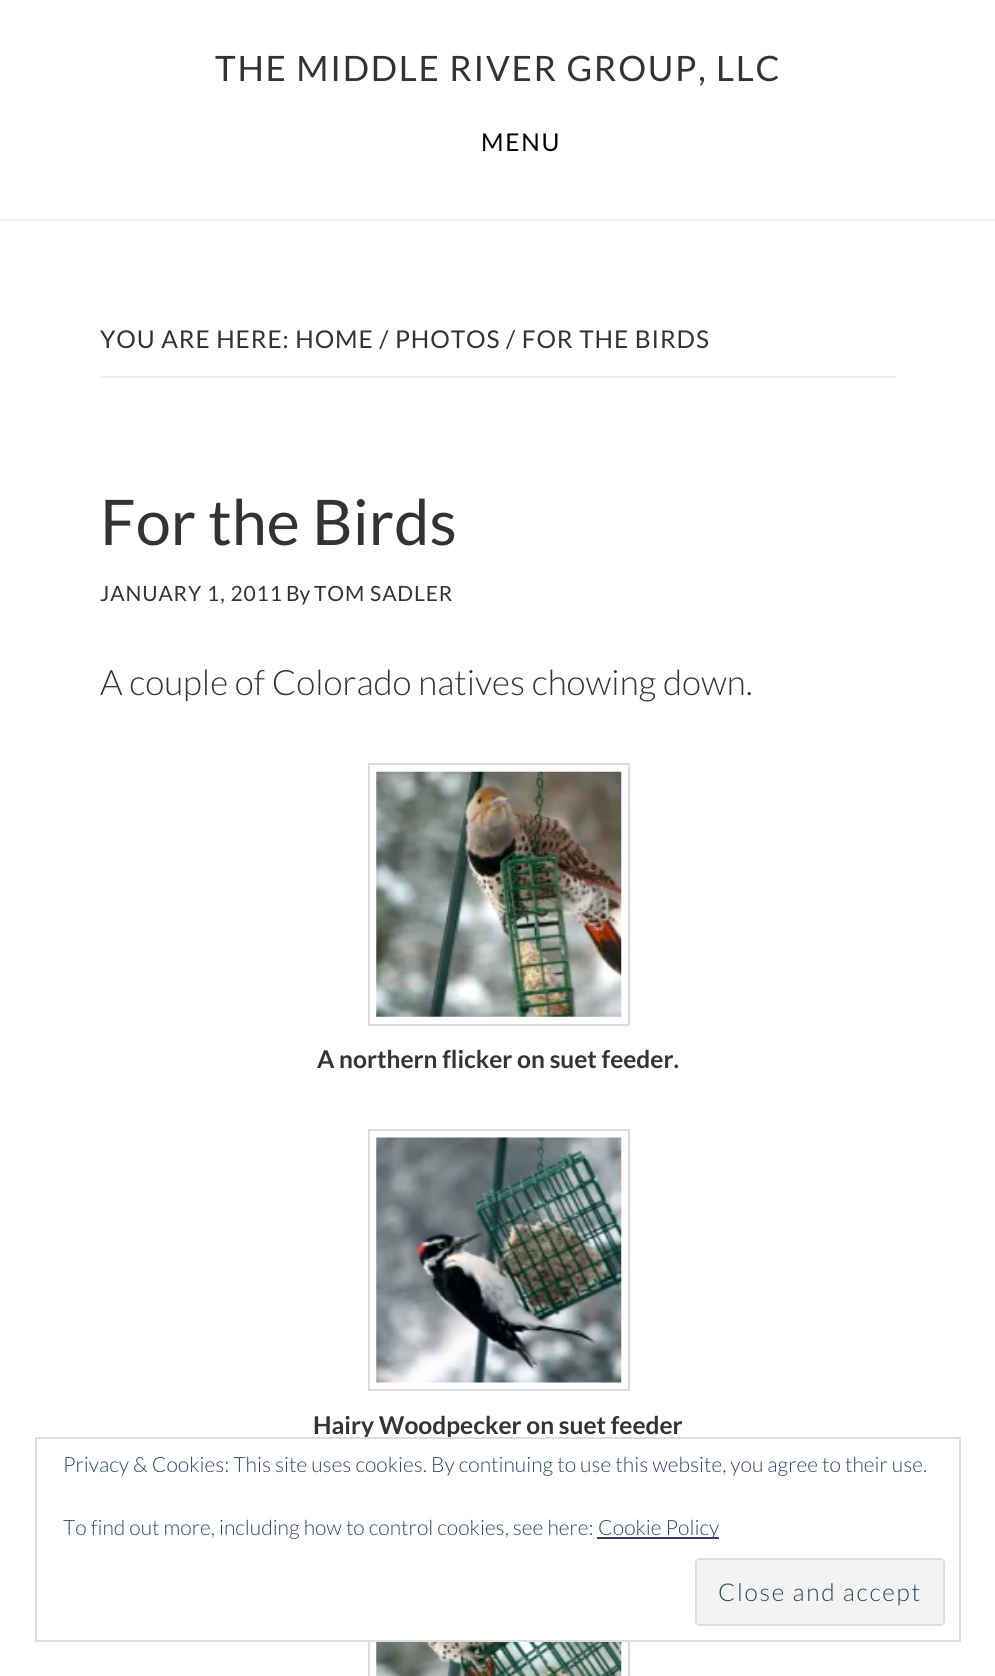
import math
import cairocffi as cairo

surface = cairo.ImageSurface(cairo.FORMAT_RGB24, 995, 1676)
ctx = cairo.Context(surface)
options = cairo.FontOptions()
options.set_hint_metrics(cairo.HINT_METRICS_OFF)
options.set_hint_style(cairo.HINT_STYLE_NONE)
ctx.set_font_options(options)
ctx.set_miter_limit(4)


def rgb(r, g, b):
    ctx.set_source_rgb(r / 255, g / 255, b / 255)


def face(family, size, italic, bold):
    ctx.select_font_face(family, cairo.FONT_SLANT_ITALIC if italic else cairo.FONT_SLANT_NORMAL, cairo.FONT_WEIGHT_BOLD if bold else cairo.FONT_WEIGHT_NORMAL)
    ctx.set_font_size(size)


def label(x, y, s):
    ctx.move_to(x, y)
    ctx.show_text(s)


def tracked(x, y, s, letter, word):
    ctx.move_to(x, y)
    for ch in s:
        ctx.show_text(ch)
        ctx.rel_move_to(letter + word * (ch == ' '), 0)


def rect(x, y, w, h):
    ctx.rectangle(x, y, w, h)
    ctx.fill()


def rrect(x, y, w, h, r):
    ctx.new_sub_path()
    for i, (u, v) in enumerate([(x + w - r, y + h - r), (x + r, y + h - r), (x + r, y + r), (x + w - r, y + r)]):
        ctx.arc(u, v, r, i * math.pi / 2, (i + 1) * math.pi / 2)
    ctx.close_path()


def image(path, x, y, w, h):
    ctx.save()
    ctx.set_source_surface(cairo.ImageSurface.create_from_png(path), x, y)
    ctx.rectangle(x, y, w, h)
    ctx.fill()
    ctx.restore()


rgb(255, 255, 255)
ctx.paint()
rgb(238, 238, 238)
rect(0, 219, 995, 2)
face('Lato', 35, 0, 0)
rgb(51, 51, 51)
tracked(215, 81, 'THE MIDDLE RIVER GROUP, LLC', 1.75, 0)
face('Lato', 24.5, 0, 0)
rgb(0, 0, 0)
tracked(481, 151, 'MENU', 1.75, 0)
rgb(238, 238, 238)
rect(100, 376, 796, 2)
rgb(51, 51, 51)
tracked(100, 348, 'YOU ARE HERE: HOME / PHOTOS / FOR THE BIRDS', 0.9, 0)
face('Lato', 63, 0, 0)
label(100, 545, 'For the Birds')
face('Lato', 21, 0, 0)
tracked(100, 601, 'JANUARY 1, 2011', 0.9, 0)
label(286, 601, 'By')
tracked(314, 601, 'TOM SADLER', 0.9, 0)
face('Lato Light', 35, 0, 0)
label(100, 695, 'A couple of Colorado natives chowing down.')
ctx.rectangle(369, 764, 260, 261)
rgb(221, 221, 221)
ctx.stroke()
image('image0.png', 376, 771, 246, 246)
face('Lato', 24.5, 0, 1)
rgb(51, 51, 51)
label(317, 1068, 'A northern flicker on suet feeder.')
ctx.rectangle(369, 1130, 260, 260)
rgb(221, 221, 221)
ctx.stroke()
image('image1.png', 376, 1137, 246, 246)
rgb(51, 51, 51)
label(313, 1434, 'Hairy Woodpecker on suet feeder')
ctx.rectangle(369, 1496, 260, 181)
rgb(221, 221, 221)
ctx.stroke()
image('image2.png', 376, 1642, 246, 34)
rgb(255, 255, 255)
rect(368, 1495, 262, 145)
ctx.rectangle(36, 1438, 924, 203)
rgb(222, 222, 222)
ctx.stroke()
face('Lato Light', 21, 0, 0)
rgb(46, 68, 103)
label(63, 1472, 'Privacy & Cookies: This site uses cookies. By continuing to use this website, you agree to their use.')
label(63, 1535, 'To find out more, including how to control cookies, see here:')
rect(597, 1537, 122, 2)
label(598, 1535, 'Cookie Policy')
rgb(243, 243, 243)
rrect(696, 1559, 248, 66, 4)
ctx.fill_preserve()
rgb(222, 222, 222)
ctx.stroke()
face('Lato Light', 24.5, 0, 0)
rgb(46, 68, 83)
tracked(718, 1601, 'Close and accept', 1.75, 0)
surface.write_to_png('render.png')
